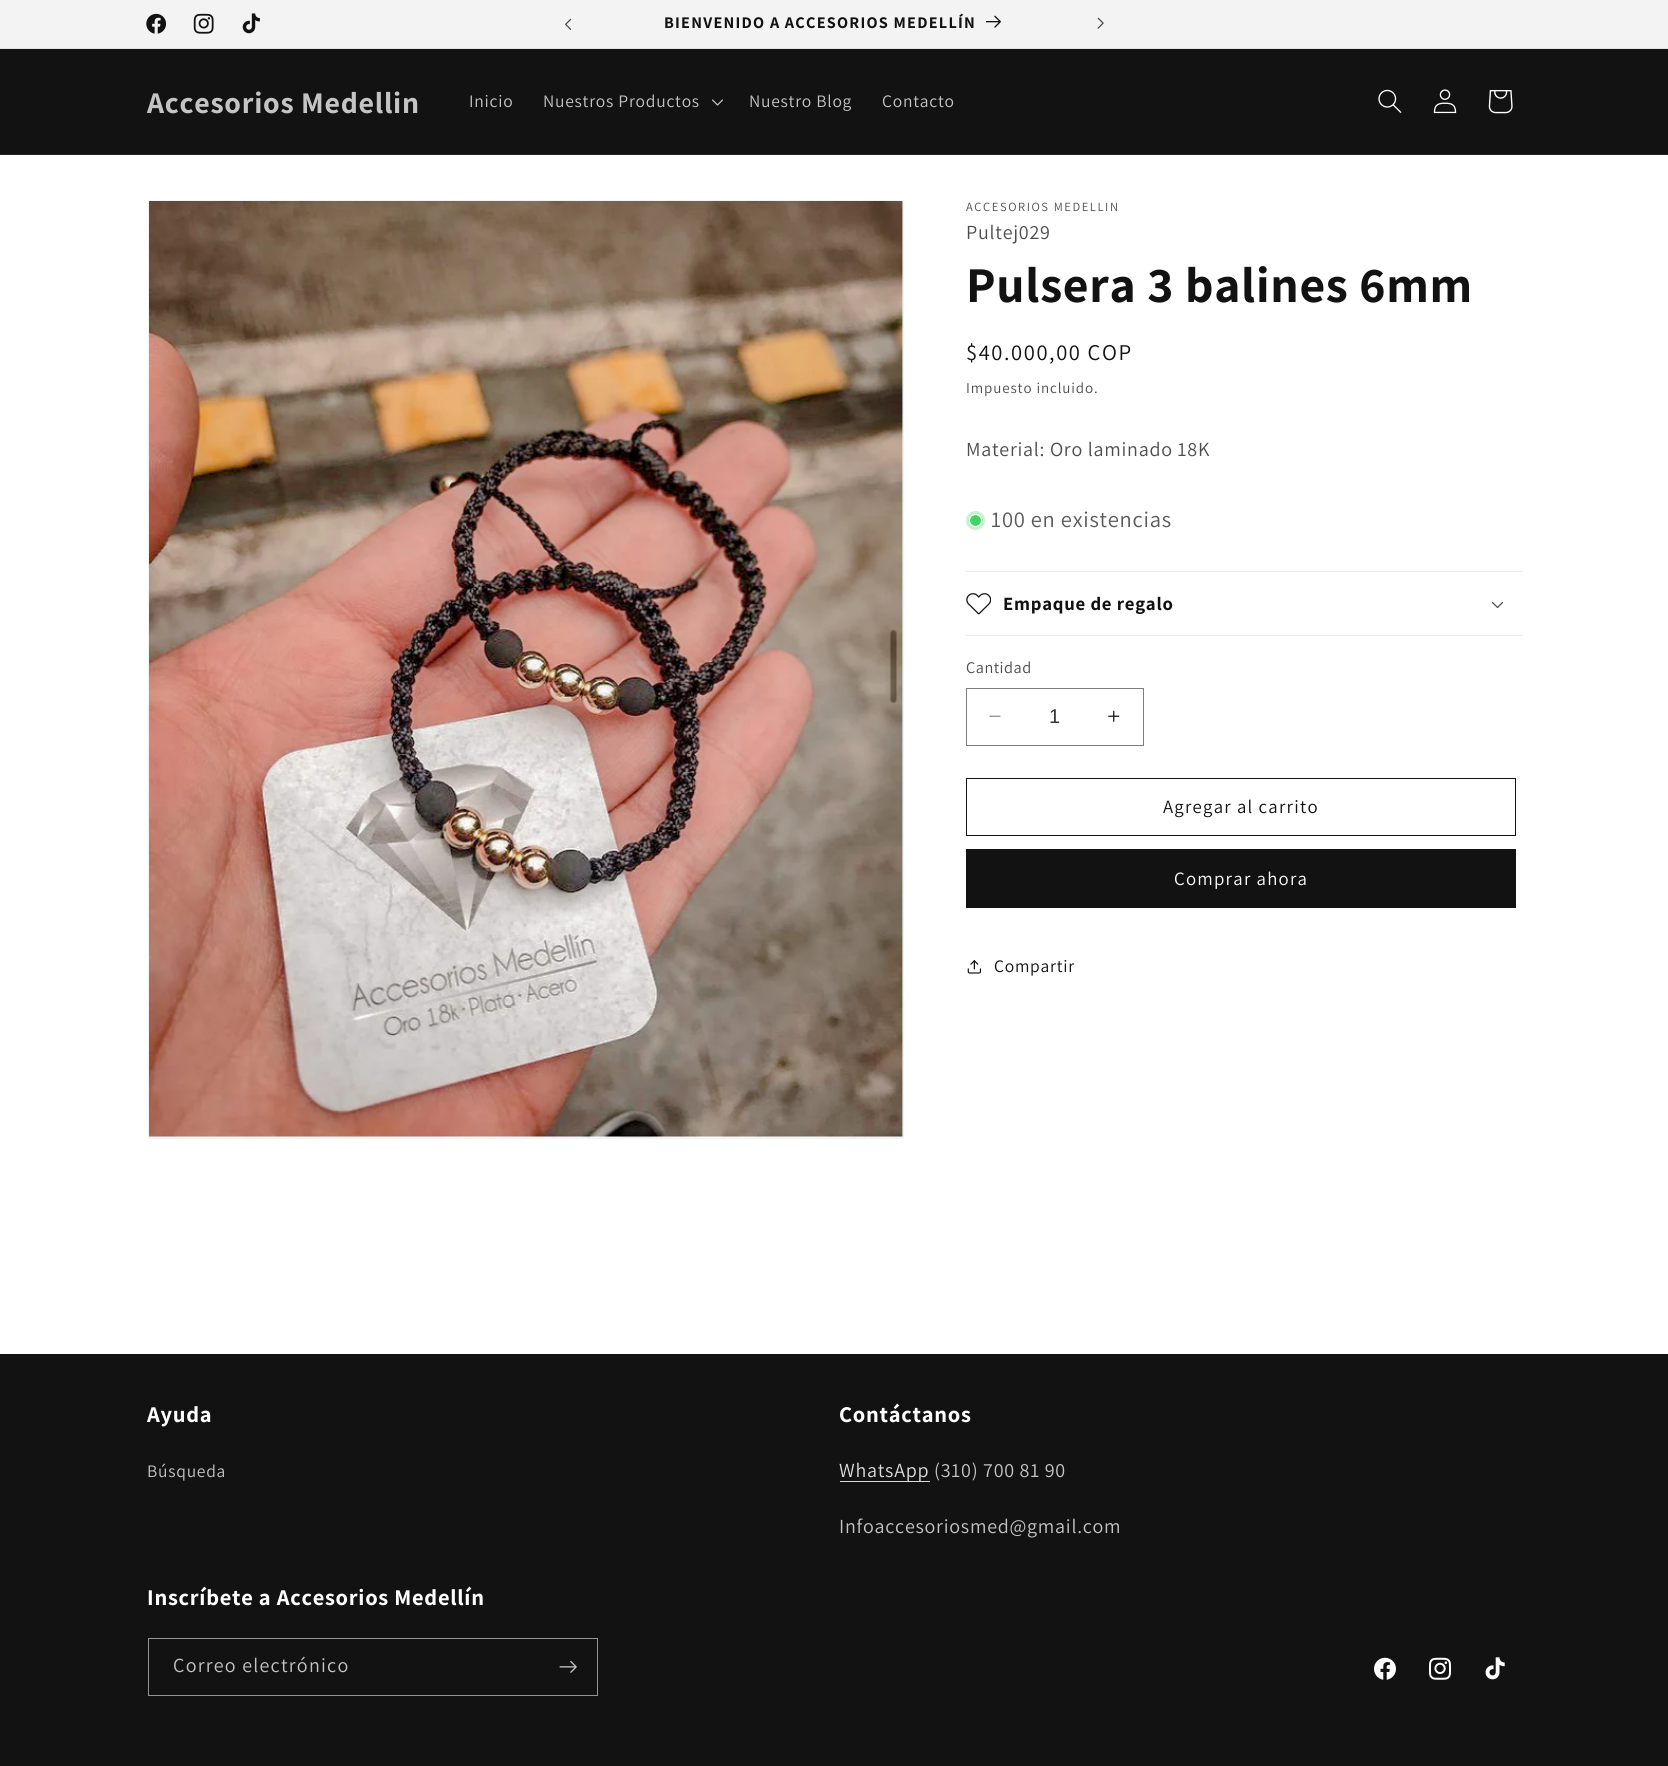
import math
import cairocffi as cairo

surface = cairo.ImageSurface(cairo.FORMAT_RGB24, 1668, 1766)
ctx = cairo.Context(surface)
options = cairo.FontOptions()
options.set_hint_metrics(cairo.HINT_METRICS_OFF)
options.set_hint_style(cairo.HINT_STYLE_NONE)
ctx.set_font_options(options)
ctx.set_miter_limit(4)


def rgb(r, g, b):
    ctx.set_source_rgb(r / 255, g / 255, b / 255)


def face(family, size, italic, bold):
    ctx.select_font_face(family, cairo.FONT_SLANT_ITALIC if italic else cairo.FONT_SLANT_NORMAL, cairo.FONT_WEIGHT_BOLD if bold else cairo.FONT_WEIGHT_NORMAL)
    ctx.set_font_size(size)


def label(x, y, s):
    ctx.move_to(x, y)
    ctx.show_text(s)


def tracked(x, y, s, letter, word):
    ctx.move_to(x, y)
    for ch in s:
        ctx.show_text(ch)
        ctx.rel_move_to(letter + word * (ch == ' '), 0)


def rect(x, y, w, h):
    ctx.rectangle(x, y, w, h)
    ctx.fill()


def image(path, x, y, w, h):
    ctx.save()
    ctx.set_source_surface(cairo.ImageSurface.create_from_png(path), x, y)
    ctx.rectangle(x, y, w, h)
    ctx.fill()
    ctx.restore()


rgb(255, 255, 255)
ctx.paint()
rgb(243, 243, 243)
rect(0, 0, 1668, 48)
rgb(225, 225, 225)
rect(0, 48, 1668, 1)
image('image0.png', 146, 13, 21, 21)
image('image1.png', 193, 13, 21, 21)
image('image2.png', 242, 13, 18, 21)
image('image3.png', 565, 18, 7, 12)
face('Assistant', 16.25, 0, 1)
rgb(18, 18, 18)
tracked(664, 28, 'BIENVENIDO A ACCESORIOS MEDELLÍN', 1.25, 0)
image('image4.png', 986, 15, 15, 13)
image('image5.png', 1097, 17, 7, 12)
rect(0, 49, 1668, 105)
rgb(37, 37, 37)
rect(0, 154, 1668, 1)
face('Assistant', 30, 0, 1)
rgb(196, 196, 196)
tracked(147, 113, 'Accesorios Medellin', 0.75, 0)
face('Assistant', 17.5, 0, 0)
tracked(469, 107, 'Inicio', 0.75, 0)
tracked(543, 107, 'Nuestros Productos', 0.75, 0)
image('image6.png', 712, 99, 11, 7)
tracked(749, 107, 'Nuestro Blog', 0.75, 0)
tracked(882, 107, 'Contacto', 0.75, 0)
image('image7.png', 1378, 89, 24, 24)
image('image8.png', 1433, 89, 24, 25)
image('image9.png', 1488, 90, 25, 24)
ctx.rectangle(148.5, 200.5, 755, 938)
rgb(243, 243, 243)
ctx.set_line_width(1)
ctx.stroke()
image('image10.png', 149, 201, 754, 937)
face('Assistant', 12.5, 0, 0)
rgb(77, 77, 77)
tracked(966, 211, 'ACCESORIOS MEDELLIN', 1.6, 0)
face('Assistant', 20, 0, 0)
tracked(966, 239, 'Pultej029', 0.75, 0)
face('Assistant', 50, 0, 1)
rgb(18, 18, 18)
tracked(966, 302, 'Pulsera 3 balines 6mm', 0.75, 0)
face('Assistant', 22.5, 0, 0)
tracked(966, 360, '$40.000,00 COP', 1.6, 0)
face('Assistant', 15, 0, 0)
rgb(77, 77, 77)
tracked(966, 393, 'Impuesto incluido.', 0.9, 0)
face('Assistant', 20, 0, 0)
tracked(966, 456, 'Material: Oro laminado 18K', 0.75, 0)
rgb(197, 243, 207)
ctx.new_path()
ctx.arc(975.5, 520.5, 9.5, 0, 2 * math.pi)
ctx.fill()
rgb(62, 214, 96)
ctx.arc(975.5, 520.5, 6, 0, 2 * math.pi)
ctx.fill_preserve()
rgb(255, 255, 255)
ctx.set_line_width(1.2)
ctx.stroke()
face('Assistant', 22.5, 0, 0)
rgb(89, 89, 89)
tracked(991, 527, '100 en existencias', 0.75, 0)
rgb(236, 236, 236)
rect(966, 571, 557, 1)
rect(966, 635, 557, 1)
image('image11.png', 966, 593, 25, 22)
face('Assistant', 18.75, 0, 1)
rgb(18, 18, 18)
tracked(1003, 610, 'Empaque de regalo', 0.75, 0)
image('image12.png', 1491, 601, 13, 8)
face('Assistant', 16.25, 0, 0)
rgb(77, 77, 77)
tracked(966, 673, 'Cantidad', 0.5, 0)
image('image13.png', 989, 715, 12, 2)
image('image14.png', 1108, 710, 12, 12)
ctx.rectangle(966.5, 688.5, 177, 57)
rgb(125, 125, 125)
ctx.set_line_width(1)
ctx.stroke()
face('Liberation Sans', 20, 0, 0)
rgb(54, 54, 54)
label(1049, 723, '1')
ctx.rectangle(966.5, 778.5, 549, 57)
rgb(18, 18, 18)
ctx.stroke()
face('Assistant', 18.75, 0, 0)
tracked(1163, 813, 'Agregar al carrito', 1.25, 0)
rect(966, 849, 550, 59)
rgb(255, 255, 255)
tracked(1174, 885, 'Comprar ahora', 1.25, 0)
image('image15.png', 967, 960, 15, 14)
face('Assistant', 17.5, 0, 0)
rgb(18, 18, 18)
tracked(994, 972, 'Compartir', 0.75, 0)
rect(0, 1354, 1668, 412)
face('Assistant', 22.5, 0, 1)
rgb(255, 255, 255)
tracked(147, 1422, 'Ayuda', 0.75, 0)
face('Assistant', 17.5, 0, 0)
rgb(196, 196, 196)
tracked(147, 1477, 'Búsqueda', 0.75, 0)
face('Assistant', 22.5, 0, 1)
rgb(255, 255, 255)
tracked(839, 1422, 'Contáctanos', 0.75, 0)
rgb(219, 219, 219)
rect(840, 1481, 90, 1)
face('Assistant', 20, 0, 0)
rgb(220, 220, 220)
tracked(839, 1477, 'WhatsApp', 0.75, 0)
rgb(196, 196, 196)
tracked(934, 1477, '(310) 700 81 90', 0.75, 0)
tracked(839, 1533, 'Infoaccesoriosmed@gmail.com', 0.75, 0)
face('Assistant', 22.5, 0, 1)
rgb(255, 255, 255)
tracked(147, 1605, 'Inscríbete a Accesorios Medellín', 0.75, 0)
ctx.rectangle(148.5, 1638.5, 449, 57)
rgb(148, 148, 148)
ctx.stroke()
face('Assistant', 20, 0, 0)
rgb(196, 196, 196)
tracked(173, 1672, 'Correo electrónico', 1.25, 0)
image('image16.png', 559, 1660, 18, 13)
image('image17.png', 1374, 1657, 22, 23)
image('image18.png', 1429, 1657, 22, 23)
image('image19.png', 1485, 1657, 20, 23)
surface.write_to_png('render.png')
